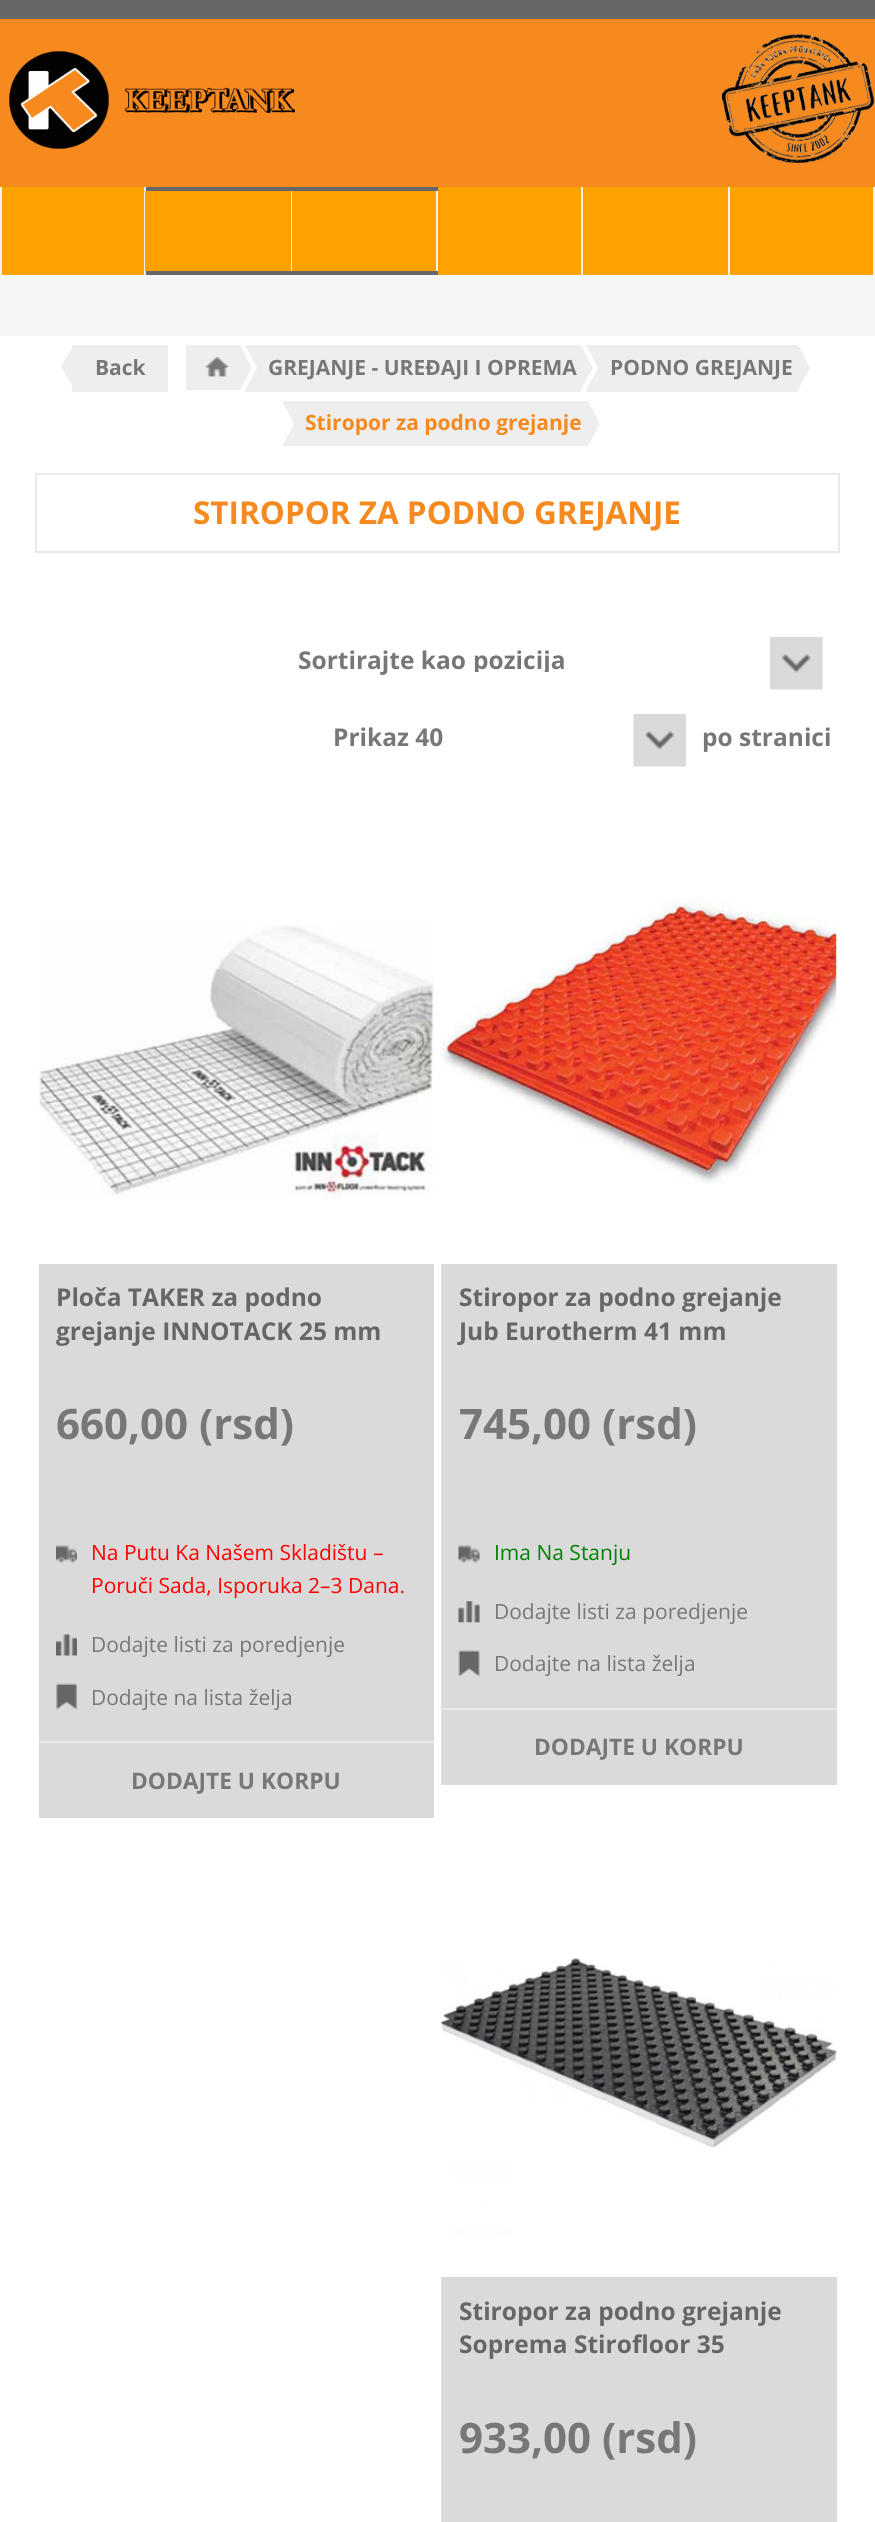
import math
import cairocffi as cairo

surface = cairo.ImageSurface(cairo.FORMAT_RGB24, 875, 2522)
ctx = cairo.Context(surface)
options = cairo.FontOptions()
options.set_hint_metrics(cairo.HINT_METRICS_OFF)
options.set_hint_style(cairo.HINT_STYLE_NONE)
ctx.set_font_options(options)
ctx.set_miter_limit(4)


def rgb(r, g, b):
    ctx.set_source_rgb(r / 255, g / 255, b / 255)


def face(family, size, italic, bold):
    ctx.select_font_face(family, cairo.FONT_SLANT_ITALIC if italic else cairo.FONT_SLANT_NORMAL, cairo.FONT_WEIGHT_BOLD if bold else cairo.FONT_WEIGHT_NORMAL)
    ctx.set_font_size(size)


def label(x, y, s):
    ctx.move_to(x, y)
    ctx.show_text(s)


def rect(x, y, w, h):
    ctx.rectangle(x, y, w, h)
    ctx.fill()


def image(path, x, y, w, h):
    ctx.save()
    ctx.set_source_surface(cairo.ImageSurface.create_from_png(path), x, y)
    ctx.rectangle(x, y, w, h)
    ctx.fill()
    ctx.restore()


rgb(246, 246, 246)
ctx.paint()
rgb(103, 103, 103)
rect(0, 0, 875, 19)
rgb(246, 138, 31)
rect(0, 19, 875, 168)
image('image0.png', 9, 51, 286, 98)
image('image1.png', 722, 34, 153, 129)
rgb(103, 103, 103)
rect(146, 187, 292, 88)
rgb(255, 161, 1)
rect(2, 187, 142, 88)
rgb(238, 238, 238)
rect(144, 187, 2, 88)
rect(0, 187, 2, 88)
rgb(255, 161, 1)
rect(145, 191, 146, 80)
rgb(238, 238, 238)
rect(291, 191, 1, 80)
rgb(255, 161, 1)
rect(292, 191, 144, 80)
rgb(238, 238, 238)
rect(436, 191, 2, 80)
rgb(255, 161, 1)
rect(438, 187, 143, 88)
rgb(238, 238, 238)
rect(581, 187, 2, 88)
rgb(255, 161, 1)
rect(583, 187, 145, 88)
rgb(238, 238, 238)
rect(728, 187, 2, 88)
rgb(255, 161, 1)
rect(730, 187, 143, 88)
rgb(238, 238, 238)
rect(873, 187, 2, 88)
rgb(255, 255, 255)
rect(0, 336, 875, 2186)
rgb(238, 238, 238)
rect(72, 345, 96, 47)
ctx.new_path()
ctx.move_to(74, 344)
ctx.line_to(74, 389)
ctx.line_to(61, 367)
ctx.close_path()
ctx.fill()
face('Open Sans', 21, 0, 1)
rgb(119, 119, 119)
label(95, 375, 'Back')
rgb(238, 238, 238)
rect(186, 345, 54, 45)
image('image2.png', 204, 357, 26, 20)
rect(245, 345, 336, 47)
rgb(255, 255, 255)
ctx.new_path()
ctx.move_to(245, 390)
ctx.line_to(245, 345)
ctx.line_to(257, 368)
ctx.close_path()
ctx.fill()
rgb(238, 238, 238)
ctx.new_path()
ctx.move_to(240, 390)
ctx.line_to(240, 345)
ctx.line_to(252, 368)
ctx.close_path()
ctx.fill()
rgb(119, 119, 119)
label(268, 375, 'GREJANJE - UREĐAJI I OPREMA')
rgb(238, 238, 238)
rect(586, 345, 212, 47)
rgb(255, 255, 255)
ctx.new_path()
ctx.move_to(586, 390)
ctx.line_to(586, 345)
ctx.line_to(598, 368)
ctx.close_path()
ctx.fill()
rgb(238, 238, 238)
ctx.new_path()
ctx.move_to(581, 390)
ctx.line_to(581, 345)
ctx.line_to(593, 368)
ctx.close_path()
ctx.fill()
rgb(119, 119, 119)
label(610, 375, 'PODNO GREJANJE')
rgb(238, 238, 238)
ctx.new_path()
ctx.move_to(798, 390)
ctx.line_to(798, 345)
ctx.line_to(810, 368)
ctx.close_path()
ctx.fill()
rect(282, 401, 306, 45)
rgb(255, 255, 255)
ctx.new_path()
ctx.move_to(282, 446)
ctx.line_to(282, 401)
ctx.line_to(294, 424)
ctx.close_path()
ctx.fill()
rgb(246, 138, 31)
label(305, 430, 'Stiropor za podno grejanje')
rgb(238, 238, 238)
ctx.new_path()
ctx.move_to(588, 446)
ctx.line_to(588, 401)
ctx.line_to(600, 424)
ctx.close_path()
ctx.fill()
ctx.rectangle(36, 474, 803, 78)
rgb(233, 233, 233)
ctx.stroke()
face('Open Sans', 31.5, 0, 1)
rgb(246, 138, 31)
label(193, 524, 'STIROPOR ZA PODNO GREJANJE')
face('Open Sans', 24.5, 0, 1)
rgb(119, 119, 119)
label(298, 669, 'Sortirajte kao')
image('image3.png', 770, 637, 53, 53)
ctx.save()
ctx.rectangle(473, 648, 294, 24)
ctx.clip()
label(473, 669, 'pozicija')
ctx.restore()
label(333, 746, 'Prikaz 40')
image('image4.png', 633, 714, 53, 53)
label(702, 746, 'po stranici')
image('image5.png', 39, 925, 395, 275)
rgb(218, 218, 218)
rect(39, 1264, 395, 554)
rgb(102, 102, 102)
label(56, 1306, 'Ploča TAKER za podno')
label(56, 1340, 'grejanje INNOTACK 25 mm')
face('Open Sans', 42, 0, 1)
rgb(119, 119, 119)
label(56, 1439, '660,00 (rsd)')
image('image6.png', 56, 1545, 21, 19)
face('Open Sans', 21, 0, 0)
rgb(255, 0, 0)
label(91, 1560, 'Na Putu Ka Našem Skladištu –')
label(91, 1593, 'Poruči Sada, Isporuka 2–3 Dana.')
image('image7.png', 56, 1634, 21, 22)
rgb(119, 119, 119)
label(91, 1652, 'Dodajte listi za poredjenje')
image('image8.png', 56, 1683, 21, 27)
label(91, 1705, 'Dodajte na lista želja')
rgb(233, 233, 233)
rect(39, 1741, 395, 2)
face('Open Sans', 22.75, 0, 1)
rgb(119, 119, 119)
label(131, 1789, 'DODAJTE U KORPU')
image('image9.png', 441, 898, 396, 286)
rgb(218, 218, 218)
rect(441, 1264, 396, 521)
face('Open Sans', 24.5, 0, 1)
rgb(102, 102, 102)
label(459, 1306, 'Stiropor za podno grejanje')
label(459, 1340, 'Jub Eurotherm 41 mm')
face('Open Sans', 42, 0, 1)
rgb(119, 119, 119)
label(459, 1439, '745,00 (rsd)')
image('image10.png', 458, 1545, 22, 19)
face('Open Sans', 21, 0, 0)
rgb(0, 128, 0)
label(494, 1560, 'Ima Na Stanju')
image('image11.png', 458, 1601, 22, 22)
rgb(119, 119, 119)
label(494, 1619, 'Dodajte listi za poredjenje')
image('image12.png', 458, 1650, 22, 27)
label(494, 1671, 'Dodajte na lista želja')
rgb(233, 233, 233)
rect(441, 1708, 396, 2)
face('Open Sans', 22.75, 0, 1)
rgb(119, 119, 119)
label(534, 1755, 'DODAJTE U KORPU')
image('image13.png', 441, 1958, 396, 278)
rgb(218, 218, 218)
rect(441, 2277, 396, 245)
face('Open Sans', 24.5, 0, 1)
rgb(102, 102, 102)
label(459, 2320, 'Stiropor za podno grejanje')
label(459, 2353, 'Soprema Stirofloor 35')
face('Open Sans', 42, 0, 1)
rgb(119, 119, 119)
label(459, 2453, '933,00 (rsd)')
surface.write_to_png('render.png')
